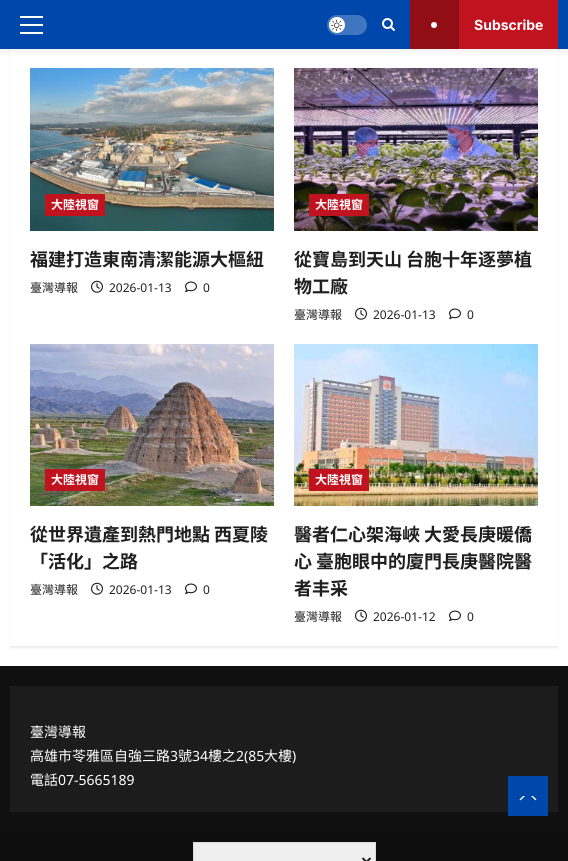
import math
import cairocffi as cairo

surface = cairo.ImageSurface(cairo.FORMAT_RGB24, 568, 861)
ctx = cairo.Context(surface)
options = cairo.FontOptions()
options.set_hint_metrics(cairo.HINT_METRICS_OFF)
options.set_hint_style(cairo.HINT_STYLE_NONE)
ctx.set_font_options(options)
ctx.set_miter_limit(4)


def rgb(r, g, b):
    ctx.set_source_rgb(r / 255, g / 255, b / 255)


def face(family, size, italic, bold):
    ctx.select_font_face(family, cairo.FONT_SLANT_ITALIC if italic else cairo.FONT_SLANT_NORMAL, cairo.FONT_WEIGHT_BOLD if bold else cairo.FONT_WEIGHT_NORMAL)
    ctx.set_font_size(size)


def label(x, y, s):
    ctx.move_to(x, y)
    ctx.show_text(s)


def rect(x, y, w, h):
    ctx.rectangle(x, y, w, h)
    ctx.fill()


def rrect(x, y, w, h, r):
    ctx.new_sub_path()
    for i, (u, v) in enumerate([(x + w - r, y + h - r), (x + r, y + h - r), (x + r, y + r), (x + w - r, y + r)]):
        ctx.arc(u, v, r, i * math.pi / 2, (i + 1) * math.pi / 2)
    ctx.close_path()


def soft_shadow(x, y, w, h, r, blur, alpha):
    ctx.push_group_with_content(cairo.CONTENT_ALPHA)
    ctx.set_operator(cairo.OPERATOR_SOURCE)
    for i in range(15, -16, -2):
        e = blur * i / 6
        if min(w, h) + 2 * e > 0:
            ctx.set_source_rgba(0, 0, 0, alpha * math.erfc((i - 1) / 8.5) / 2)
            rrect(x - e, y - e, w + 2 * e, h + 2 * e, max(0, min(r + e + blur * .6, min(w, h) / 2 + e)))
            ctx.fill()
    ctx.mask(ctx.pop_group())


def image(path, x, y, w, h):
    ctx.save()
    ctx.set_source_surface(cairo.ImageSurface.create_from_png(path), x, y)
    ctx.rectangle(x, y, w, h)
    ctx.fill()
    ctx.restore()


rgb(255, 255, 255)
ctx.paint()
rgb(0, 0, 0)
soft_shadow(0, 2, 568, 49, 0, 4, 0.08)
ctx.save()
ctx.set_fill_rule(cairo.FILL_RULE_EVEN_ODD)
ctx.new_path()
ctx.move_to(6, 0)
ctx.line_to(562, 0)
ctx.line_to(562, 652)
ctx.line_to(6, 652)
ctx.close_path()
ctx.move_to(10, -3)
ctx.line_to(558, -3)
ctx.line_to(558, 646)
ctx.line_to(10, 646)
ctx.close_path()
ctx.clip()
soft_shadow(10, -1, 548, 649, 0, 1, 0.08)
ctx.restore()
rgb(0, 71, 171)
rect(0, 0, 568, 49)
rgb(255, 255, 255)
rect(20, 24, 23, 2)
rect(20, 16, 23, 2)
rect(20, 32, 23, 2)
rgb(64, 117, 192)
rrect(327, 15, 40, 20, 10)
ctx.fill()
rgb(255, 255, 255)
ctx.arc(337, 25, 8, 0, 2 * math.pi)
ctx.fill()
image('image0.png', 331, 19, 12, 12)
image('image1.png', 382, 18, 13, 13)
rgb(193, 18, 31)
rect(459, 0, 99, 49)
rgb(145, 14, 23)
rect(410, 0, 49, 49)
rgb(255, 255, 255)
ctx.arc(434, 25, 3, 0, 2 * math.pi)
ctx.fill()
face('Inter', 14, 0, 1)
label(474, 30, 'Subscribe')
image('image2.png', 30, 68, 244, 163)
rgb(193, 18, 31)
rect(45, 194, 60, 22)
face('Noto Sans CJK SC', 12, 0, 1)
rgb(255, 255, 255)
label(51, 209, '大陸視窗')
face('Noto Sans CJK SC', 18, 0, 1)
rgb(31, 31, 31)
label(30, 266, '福建打造東南清潔能源大樞紐')
face('Noto Sans CJK SC', 12, 0, 0)
label(30, 292, '臺灣導報')
image('image3.png', 91, 280, 12, 13)
face('Noto Sans', 12, 0, 0)
label(109, 292, '2026-01-13')
image('image4.png', 185, 281, 12, 11)
label(203, 292, '0')
image('image5.png', 294, 68, 244, 163)
rgb(193, 18, 31)
rect(309, 194, 60, 22)
face('Noto Sans CJK SC', 12, 0, 1)
rgb(255, 255, 255)
label(315, 209, '大陸視窗')
face('Noto Sans CJK SC', 18, 0, 1)
rgb(31, 31, 31)
label(294, 266, '從寶島到天山 台胞十年逐夢植')
label(294, 293, '物工廠')
face('Noto Sans CJK SC', 12, 0, 0)
label(294, 319, '臺灣導報')
image('image3.png', 355, 307, 12, 13)
face('Noto Sans', 12, 0, 0)
label(373, 319, '2026-01-13')
image('image4.png', 449, 308, 12, 11)
label(467, 319, '0')
image('image6.png', 30, 344, 244, 162)
rgb(193, 18, 31)
rect(45, 469, 60, 22)
face('Noto Sans CJK SC', 12, 0, 1)
rgb(255, 255, 255)
label(51, 484, '大陸視窗')
face('Noto Sans CJK SC', 18, 0, 1)
rgb(31, 31, 31)
label(30, 541, '從世界遺產到熱門地點 西夏陵')
label(30, 568, '「活化」之路')
face('Noto Sans CJK SC', 12, 0, 0)
label(30, 594, '臺灣導報')
image('image3.png', 91, 582, 12, 13)
face('Noto Sans', 12, 0, 0)
label(109, 594, '2026-01-13')
image('image4.png', 185, 583, 12, 11)
label(203, 594, '0')
image('image7.png', 294, 344, 244, 162)
rgb(193, 18, 31)
rect(309, 469, 60, 22)
face('Noto Sans CJK SC', 12, 0, 1)
rgb(255, 255, 255)
label(315, 484, '大陸視窗')
face('Noto Sans CJK SC', 18, 0, 1)
rgb(31, 31, 31)
label(294, 541, '醫者仁心架海峽 大愛長庚暖僑')
label(294, 568, '心 臺胞眼中的廈門長庚醫院醫')
label(294, 595, '者丰采')
face('Noto Sans CJK SC', 12, 0, 0)
label(294, 621, '臺灣導報')
image('image3.png', 355, 609, 12, 13)
face('Noto Sans', 12, 0, 0)
label(373, 621, '2026-01-12')
image('image4.png', 449, 610, 12, 11)
label(467, 621, '0')
rgb(16, 16, 16)
rect(0, 666, 568, 166)
rgb(28, 28, 28)
rect(10, 686, 548, 126)
face('Noto Sans CJK SC', 14, 0, 0)
rgb(255, 255, 255)
label(30, 737, '臺灣導報')
label(30, 761, '高雄市苓雅區自強三路')
face('Noto Sans', 14, 0, 0)
label(170, 761, '3')
face('Noto Sans CJK SC', 14, 0, 0)
label(178, 761, '號')
face('Noto Sans', 14, 0, 0)
label(192, 761, '34')
face('Noto Sans CJK SC', 14, 0, 0)
label(208, 761, '樓之')
face('Noto Sans', 14, 0, 0)
label(236, 761, '2(85')
face('Noto Sans CJK SC', 14, 0, 0)
label(264, 761, '大樓')
face('Noto Sans', 14, 0, 0)
label(292, 761, ')')
face('Noto Sans CJK SC', 14, 0, 0)
label(30, 785, '電話')
face('Noto Sans', 14, 0, 0)
label(58, 785, '07-5665189')
rgb(14, 14, 14)
rect(0, 832, 568, 29)
rgb(239, 239, 239)
ctx.rectangle(193.5, 842.5, 182, 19)
ctx.fill_preserve()
rgb(220, 220, 220)
ctx.set_line_width(1)
ctx.stroke()
ctx.new_path()
ctx.move_to(362.5, 858)
ctx.line_to(366.5, 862)
ctx.line_to(370.5, 858)
rgb(31, 31, 31)
ctx.set_line_width(2)
ctx.stroke()
rgb(0, 71, 171)
rect(508, 776, 40, 40)
rgb(255, 255, 255)
ctx.new_path()
ctx.move_to(523, 801)
ctx.curve_to(526, 801, 534.5, 802, 536.5, 799.5)
ctx.line_to(533, 796)
ctx.line_to(523, 796)
ctx.line_to(519.5, 799.5)
ctx.curve_to(520, 800.5, 521.5, 801, 523, 801)
ctx.close_path()
ctx.fill()
rgb(0, 71, 171)
ctx.new_path()
ctx.move_to(538, 803)
ctx.line_to(518, 803)
ctx.line_to(528, 793)
ctx.close_path()
ctx.fill()
surface.write_to_png('render.png')
